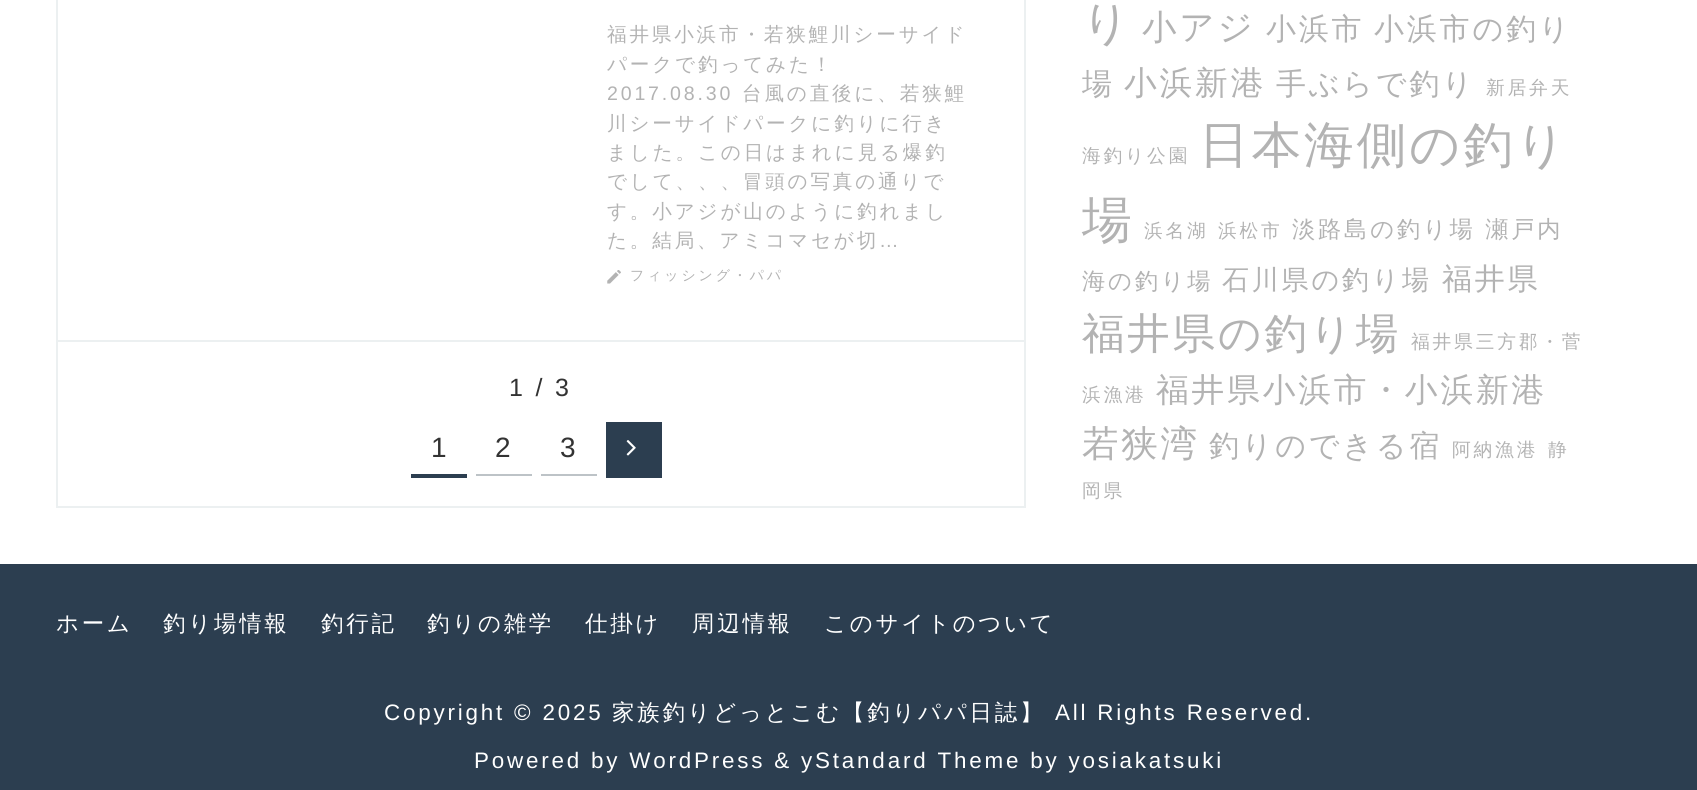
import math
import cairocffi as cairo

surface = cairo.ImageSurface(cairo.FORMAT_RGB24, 1697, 790)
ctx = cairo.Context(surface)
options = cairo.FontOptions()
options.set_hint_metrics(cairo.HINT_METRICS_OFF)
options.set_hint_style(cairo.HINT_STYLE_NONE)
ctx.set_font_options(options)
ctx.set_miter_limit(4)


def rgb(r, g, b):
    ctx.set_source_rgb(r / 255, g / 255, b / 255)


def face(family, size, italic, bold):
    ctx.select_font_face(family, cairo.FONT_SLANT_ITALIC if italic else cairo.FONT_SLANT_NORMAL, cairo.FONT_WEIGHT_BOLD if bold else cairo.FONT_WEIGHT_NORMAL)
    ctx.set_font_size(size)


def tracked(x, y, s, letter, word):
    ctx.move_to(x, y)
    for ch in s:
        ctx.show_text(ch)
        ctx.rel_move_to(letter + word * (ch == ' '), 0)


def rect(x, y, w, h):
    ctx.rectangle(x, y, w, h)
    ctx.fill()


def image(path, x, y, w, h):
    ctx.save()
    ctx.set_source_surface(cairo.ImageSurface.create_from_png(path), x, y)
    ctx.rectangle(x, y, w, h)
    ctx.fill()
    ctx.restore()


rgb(255, 255, 255)
ctx.paint()
ctx.rectangle(57, -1, 968, 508)
rgb(236, 240, 241)
ctx.stroke()
rect(58, 340, 966, 2)
face('WenQuanYi Zen Hei Medium', 19.6, 0, 0)
rgb(179, 179, 179)
tracked(607, 41, '福井県小浜市・若狭鯉川シーサイド', 2.8, 0)
tracked(607, 71, 'パークで釣ってみた！', 2.8, 0)
face('Liberation Sans', 19.6, 0, 0)
tracked(607, 100, '2017.08.30', 2.8, 0)
face('WenQuanYi Zen Hei Medium', 19.6, 0, 0)
tracked(742, 100, '台風の直後に、若狭鯉', 2.8, 0)
tracked(607, 130, '川シーサイドパークに釣りに行き', 2.8, 0)
tracked(607, 159, 'ました。この日はまれに見る爆釣', 2.8, 0)
tracked(607, 188, 'でして、、、冒頭の写真の通りで', 2.8, 0)
tracked(607, 218, 'す。小アジが山のように釣れまし', 2.8, 0)
tracked(607, 247, 'た。結局、アミコマセが切', 2.8, 0)
face('Liberation Sans', 19.6, 0, 0)
tracked(879, 247, '…', 2.8, 0)
image('image0.png', 607, 270, 14, 14)
face('WenQuanYi Zen Hei Medium', 14, 0, 0)
tracked(630, 280, 'フィッシング・パパ', 2.8, 0)
face('Liberation Sans', 25, 0, 0)
rgb(51, 51, 51)
tracked(509, 396, '1 / 3', 2.8, 0)
rgb(44, 62, 80)
rect(411, 474, 56, 4)
face('Liberation Sans', 28, 0, 0)
rgb(51, 51, 51)
tracked(431, 457, '1', 2.8, 0)
rgb(189, 195, 199)
rect(476, 474, 56, 2)
rgb(51, 51, 51)
tracked(495, 457, '2', 2.8, 0)
rgb(189, 195, 199)
rect(541, 474, 56, 2)
rgb(51, 51, 51)
tracked(560, 457, '3', 2.8, 0)
rgb(44, 62, 80)
rect(606, 422, 56, 56)
image('image1.png', 626, 440, 10, 16)
face('WenQuanYi Zen Hei Medium', 47, 0, 0)
rgb(179, 179, 179)
tracked(1082, 39, 'り', 2.8, 0)
face('WenQuanYi Zen Hei Medium', 34.5, 0, 0)
tracked(1142, 39, '小アジ', 2.8, 0)
face('WenQuanYi Zen Hei Medium', 30, 0, 0)
tracked(1266, 39, '小浜市', 2.8, 0)
tracked(1374, 39, '小浜市の釣り', 2.8, 0)
tracked(1082, 94, '場', 2.8, 0)
face('WenQuanYi Zen Hei Medium', 32.75, 0, 0)
tracked(1124, 94, '小浜新港', 2.8, 0)
face('WenQuanYi Zen Hei Medium', 30, 0, 0)
tracked(1276, 94, '手ぶらで釣り', 2.8, 0)
face('WenQuanYi Zen Hei Medium', 18.75, 0, 0)
tracked(1486, 94, '新居弁天', 2.8, 0)
tracked(1082, 162, '海釣り公園', 2.8, 0)
face('WenQuanYi Zen Hei Medium', 49.75, 0, 0)
tracked(1199, 162, '日本海側の釣り', 2.8, 0)
tracked(1082, 237, '場', 2.8, 0)
face('WenQuanYi Zen Hei Medium', 18.75, 0, 0)
tracked(1144, 237, '浜名湖', 2.8, 0)
tracked(1218, 237, '浜松市', 2.8, 0)
face('WenQuanYi Zen Hei Medium', 23.25, 0, 0)
tracked(1292, 237, '淡路島の釣り場 瀬戸内', 2.8, 0)
tracked(1082, 289, '海の釣り場', 2.8, 0)
face('WenQuanYi Zen Hei Medium', 27, 0, 0)
tracked(1222, 289, '石川県の釣り場', 2.8, 0)
face('WenQuanYi Zen Hei Medium', 30, 0, 0)
tracked(1442, 289, '福井県', 2.8, 0)
face('WenQuanYi Zen Hei Medium', 42.5, 0, 0)
tracked(1082, 348, '福井県の釣り場', 2.8, 0)
face('WenQuanYi Zen Hei Medium', 18.75, 0, 0)
tracked(1411, 348, '福井県三方郡・菅', 2.8, 0)
tracked(1082, 401, '浜漁港', 2.8, 0)
face('WenQuanYi Zen Hei Medium', 32.75, 0, 0)
tracked(1156, 401, '福井県小浜市・小浜新港', 2.8, 0)
face('WenQuanYi Zen Hei Medium', 36.5, 0, 0)
tracked(1082, 456, '若狭湾', 2.8, 0)
face('WenQuanYi Zen Hei Medium', 30, 0, 0)
tracked(1209, 456, '釣りのできる宿', 2.8, 0)
face('WenQuanYi Zen Hei Medium', 18.75, 0, 0)
tracked(1452, 456, '阿納漁港', 2.8, 0)
tracked(1548, 456, '静', 2.8, 0)
tracked(1082, 497, '岡県', 2.8, 0)
rgb(44, 62, 80)
rect(0, 564, 1697, 226)
face('WenQuanYi Zen Hei Medium', 22.4, 0, 0)
rgb(255, 255, 255)
tracked(56, 631, 'ホーム', 2.8, 0)
tracked(163, 631, '釣り場情報', 2.8, 0)
tracked(321, 631, '釣行記', 2.8, 0)
tracked(427, 631, '釣りの雑学', 2.8, 0)
tracked(585, 631, '仕掛け', 2.8, 0)
tracked(692, 631, '周辺情報', 2.8, 0)
tracked(824, 631, 'このサイトのついて', 2.8, 0)
face('Liberation Sans', 22.4, 0, 0)
tracked(384, 720, 'Copyright © 2025', 2.8, 0)
face('WenQuanYi Zen Hei Medium', 22.4, 0, 0)
tracked(612, 720, '家族釣りどっとこむ【釣りパパ日誌】', 2.8, 0)
face('Liberation Sans', 22.4, 0, 0)
tracked(1055, 720, 'All Rights Reserved.', 2.8, 0)
tracked(474, 768, 'Powered by WordPress & yStandard Theme by yosiakatsuki', 2.8, 0)
surface.write_to_png('render.png')
